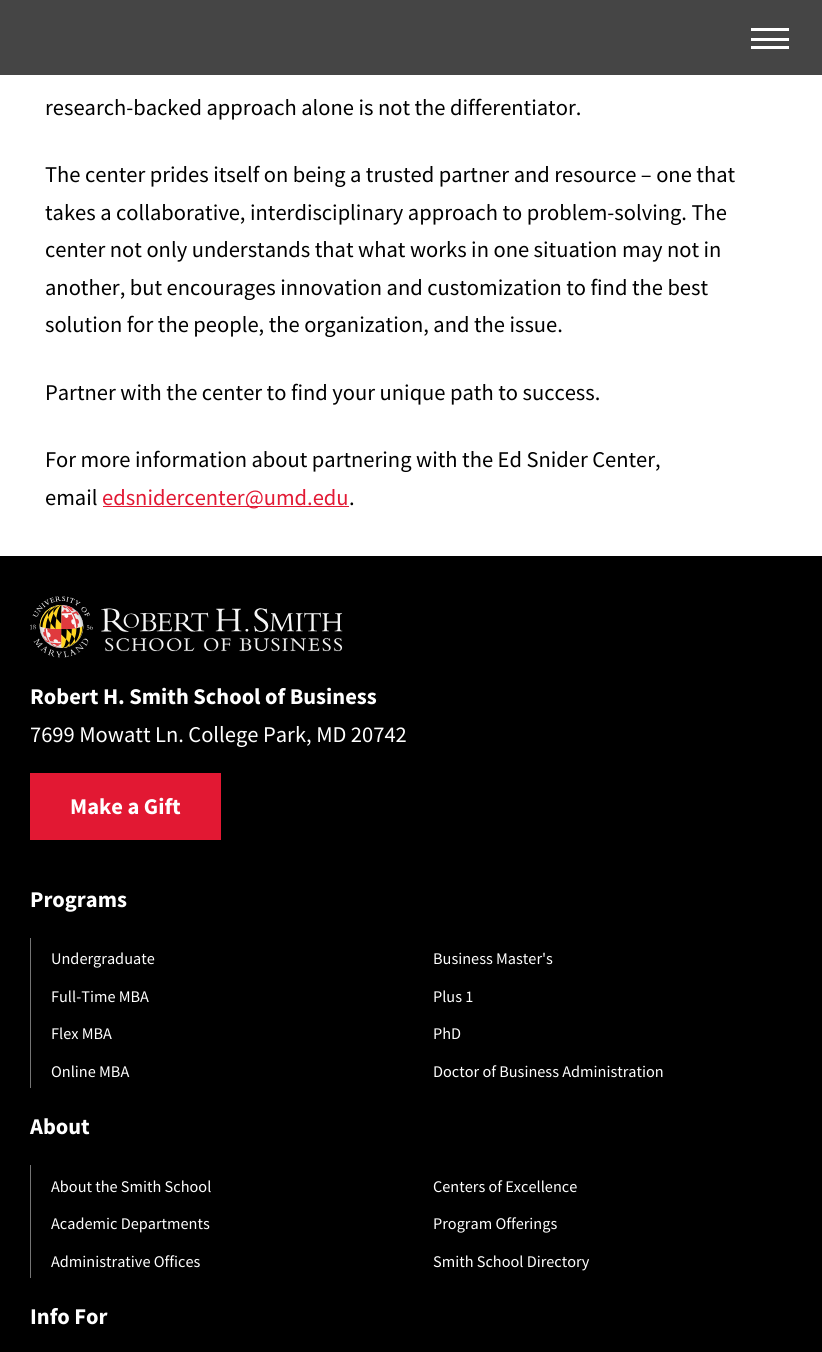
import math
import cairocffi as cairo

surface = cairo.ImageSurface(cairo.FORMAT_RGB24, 822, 1352)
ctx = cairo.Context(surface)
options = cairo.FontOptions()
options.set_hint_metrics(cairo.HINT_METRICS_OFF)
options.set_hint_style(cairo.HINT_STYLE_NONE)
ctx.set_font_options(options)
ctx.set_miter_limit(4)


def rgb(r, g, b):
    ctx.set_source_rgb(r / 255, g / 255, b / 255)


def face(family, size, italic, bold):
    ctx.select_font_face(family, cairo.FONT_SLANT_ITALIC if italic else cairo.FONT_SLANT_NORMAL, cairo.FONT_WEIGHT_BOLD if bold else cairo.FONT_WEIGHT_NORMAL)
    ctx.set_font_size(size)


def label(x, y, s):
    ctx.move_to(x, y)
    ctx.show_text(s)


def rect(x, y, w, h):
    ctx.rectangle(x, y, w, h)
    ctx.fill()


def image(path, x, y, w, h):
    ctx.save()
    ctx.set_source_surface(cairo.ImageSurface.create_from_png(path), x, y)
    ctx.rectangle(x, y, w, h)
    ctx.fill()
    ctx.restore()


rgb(255, 255, 255)
ctx.paint()
rgb(69, 69, 69)
rect(0, 0, 822, 75)
rgb(255, 255, 255)
rect(751, 28, 38, 3)
rect(751, 38, 38, 3)
rect(751, 46, 38, 3)
face('Source Sans Pro', 22.5, 0, 0)
rgb(0, 0, 0)
label(45, 115, 'research-backed approach alone is not the differentiator.')
label(45, 182, 'The center prides itself on being a trusted partner and resource – one that')
label(45, 220, 'takes a collaborative, interdisciplinary approach to problem-solving. The')
label(45, 257, 'center not only understands that what works in one situation may not in')
label(45, 295, 'another, but encourages innovation and customization to find the best')
label(45, 332, 'solution for the people, the organization, and the issue.')
label(45, 400, 'Partner with the center to find your unique path to success.')
label(45, 467, 'For more information about partnering with the Ed Snider Center,')
label(45, 505, 'email')
rgb(226, 24, 51)
rect(103, 506, 246, 1)
label(102, 505, 'edsnidercenter@umd.edu')
rgb(0, 0, 0)
label(349, 505, '.')
rect(0, 556, 822, 796)
image('image0.png', 30, 596, 313, 62)
face('Source Sans Pro', 22.5, 0, 1)
rgb(255, 255, 255)
label(30, 704, 'Robert H. Smith School of Business')
face('Source Sans Pro', 22.5, 0, 0)
label(30, 742, '7699 Mowatt Ln. College Park, MD 20742')
rgb(226, 24, 51)
rect(30, 773, 191, 67)
face('Source Sans Pro', 22.5, 0, 1)
rgb(255, 255, 255)
label(70, 814, 'Make a Gift')
label(30, 907, 'Programs')
rgb(117, 117, 117)
rect(30, 938, 1, 150)
face('Source Sans Pro', 16.25, 0, 0)
rgb(255, 255, 255)
label(51, 964, 'Undergraduate')
label(433, 964, 'Business Master\'s')
label(51, 1002, 'Full-Time MBA')
label(433, 1002, 'Plus 1')
label(51, 1039, 'Flex MBA')
label(433, 1039, 'PhD')
label(51, 1077, 'Online MBA')
label(433, 1077, 'Doctor of Business Administration')
face('Source Sans Pro', 22.5, 0, 1)
label(30, 1134, 'About')
rgb(117, 117, 117)
rect(30, 1165, 1, 113)
face('Source Sans Pro', 16.25, 0, 0)
rgb(255, 255, 255)
label(51, 1192, 'About the Smith School')
label(433, 1192, 'Centers of Excellence')
label(51, 1229, 'Academic Departments')
label(433, 1229, 'Program Offerings')
label(51, 1267, 'Administrative Offices')
label(433, 1267, 'Smith School Directory')
face('Source Sans Pro', 22.5, 0, 1)
label(30, 1324, 'Info For')
surface.write_to_png('render.png')
